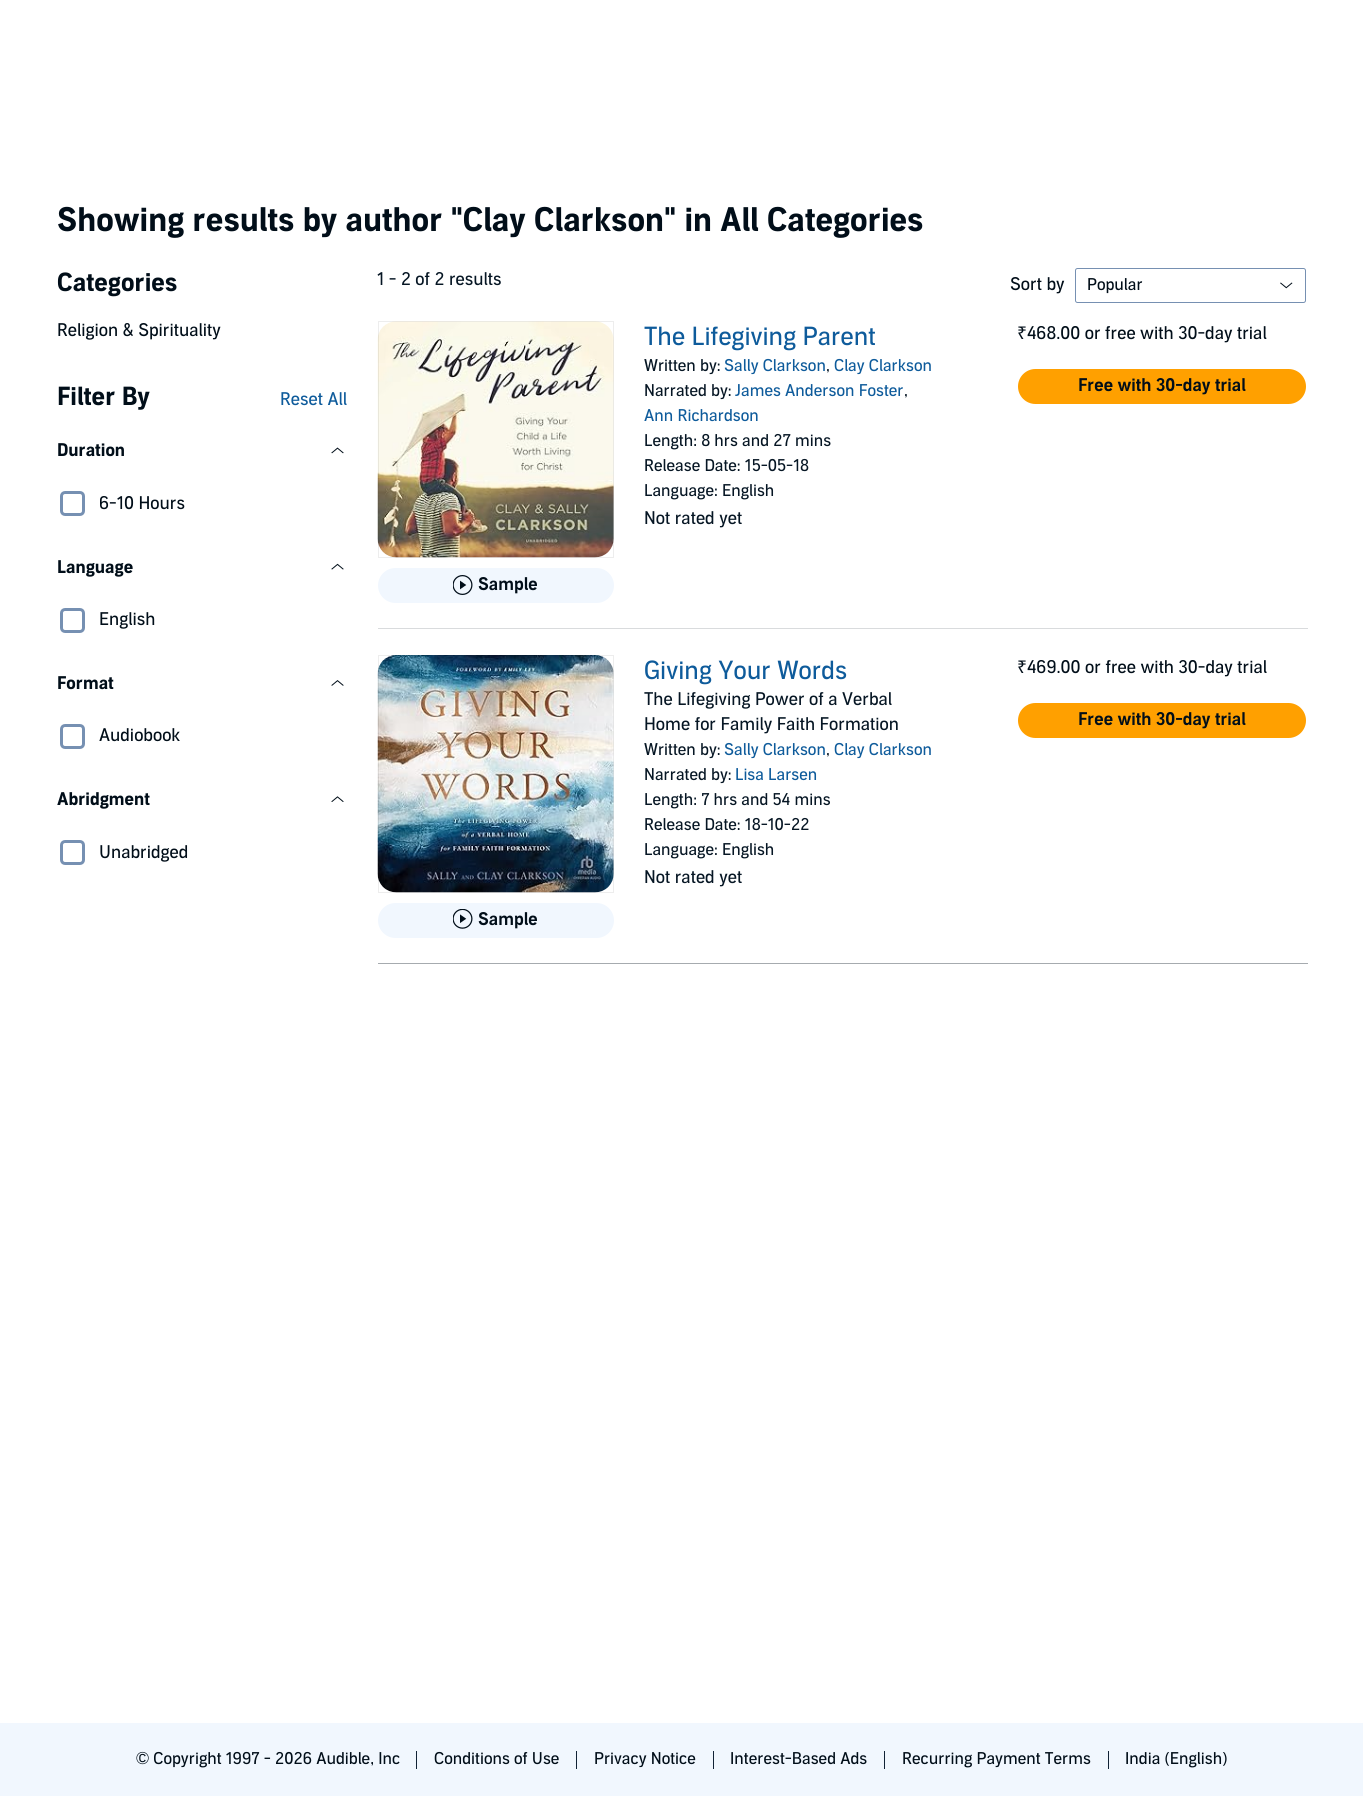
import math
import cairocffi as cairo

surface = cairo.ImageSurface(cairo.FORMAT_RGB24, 1363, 1796)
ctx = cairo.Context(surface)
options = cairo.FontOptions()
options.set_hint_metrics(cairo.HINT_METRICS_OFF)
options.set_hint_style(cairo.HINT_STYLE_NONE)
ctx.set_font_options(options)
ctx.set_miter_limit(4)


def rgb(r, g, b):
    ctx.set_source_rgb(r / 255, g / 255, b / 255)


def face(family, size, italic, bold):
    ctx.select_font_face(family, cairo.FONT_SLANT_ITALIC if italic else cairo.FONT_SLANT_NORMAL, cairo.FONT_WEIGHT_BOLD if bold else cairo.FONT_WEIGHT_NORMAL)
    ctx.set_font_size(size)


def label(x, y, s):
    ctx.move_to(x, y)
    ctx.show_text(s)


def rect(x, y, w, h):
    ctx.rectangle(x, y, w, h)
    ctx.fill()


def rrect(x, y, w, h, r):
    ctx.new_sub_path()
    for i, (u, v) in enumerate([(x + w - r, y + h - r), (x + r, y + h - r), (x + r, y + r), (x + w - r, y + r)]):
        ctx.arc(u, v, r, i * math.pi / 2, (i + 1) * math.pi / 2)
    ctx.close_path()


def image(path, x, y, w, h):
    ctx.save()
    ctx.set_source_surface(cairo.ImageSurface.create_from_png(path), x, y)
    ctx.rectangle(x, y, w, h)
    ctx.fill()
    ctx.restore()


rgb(255, 255, 255)
ctx.paint()
face('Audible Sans', 32.5, 0, 1)
rgb(1, 14, 25)
label(57, 231, 'Showing results by author "Clay Clarkson" in All Categories')
face('Audible Sans', 25, 0, 1)
label(57, 291, 'Categories')
face('Audible Sans', 17.5, 0, 0)
label(57, 336, 'Religion & Spirituality')
face('Audible Sans', 25, 0, 1)
label(57, 405, 'Filter By')
face('Audible Sans', 17.5, 0, 0)
rgb(14, 91, 155)
label(280, 405, 'Reset All')
face('Audible Sans', 17.5, 0, 1)
rgb(1, 14, 25)
label(57, 456, 'Duration')
image('image0.png', 331, 447, 13, 7)
rrect(61.5, 492.5, 22, 22, 3.5)
rgb(118, 144, 178)
ctx.set_line_width(3)
ctx.stroke()
face('Audible Sans', 17.5, 0, 0)
rgb(1, 14, 25)
label(99, 509, '6-10 Hours')
face('Audible Sans', 17.5, 0, 1)
label(57, 573, 'Language')
image('image1.png', 331, 563, 13, 7)
rrect(61.5, 609.5, 22, 22, 3.5)
rgb(118, 144, 178)
ctx.stroke()
face('Audible Sans', 17.5, 0, 0)
rgb(1, 14, 25)
label(99, 625, 'English')
face('Audible Sans', 17.5, 0, 1)
label(57, 689, 'Format')
image('image2.png', 331, 680, 13, 6)
rrect(61.5, 725.5, 22, 22, 3.5)
rgb(118, 144, 178)
ctx.stroke()
face('Audible Sans', 17.5, 0, 0)
rgb(1, 14, 25)
label(99, 741, 'Audiobook')
face('Audible Sans', 17.5, 0, 1)
label(57, 805, 'Abridgment')
image('image3.png', 331, 796, 13, 6)
rrect(61.5, 841.5, 22, 22, 3.5)
rgb(118, 144, 178)
ctx.stroke()
face('Audible Sans', 17.5, 0, 0)
rgb(1, 14, 25)
label(99, 858, 'Unabridged')
rgb(6, 22, 36)
label(377, 285, '1 - 2 of 2 results')
rgb(1, 14, 25)
label(1010, 290, 'Sort by')
rrect(1075.5, 268.5, 230, 34, 2)
rgb(118, 144, 178)
ctx.set_line_width(1)
ctx.stroke()
face('Audible Sans', 16.25, 0, 0)
rgb(1, 14, 25)
label(1087, 290, 'Popular')
image('image4.png', 1280, 282, 13, 7)
face('Audible Sans', 25, 0, 0)
rgb(14, 91, 155)
label(644, 345, 'The Lifegiving Parent')
face('Audible Sans', 16.25, 0, 0)
rgb(6, 22, 36)
label(644, 371, 'Written by:')
rgb(14, 91, 155)
label(724, 371, 'Sally Clarkson')
rgb(6, 22, 36)
label(826, 371, ',')
rgb(14, 91, 155)
label(834, 371, 'Clay Clarkson')
rgb(6, 22, 36)
label(644, 396, 'Narrated by:')
rgb(14, 91, 155)
label(735, 396, 'James Anderson Foster')
rgb(6, 22, 36)
label(904, 396, ',')
rgb(14, 91, 155)
label(644, 421, 'Ann Richardson')
rgb(6, 22, 36)
label(644, 446, 'Length: 8 hrs and 27 mins')
label(644, 471, 'Release Date: 15-05-18')
label(644, 496, 'Language: English')
face('Audible Sans', 17.5, 0, 0)
label(644, 524, 'Not rated yet')
image('image5.png', 377, 321, 237, 237)
ctx.rectangle(378.5, 321.5, 235, 236)
ctx.set_source_rgba(0.129, 0.137, 0.145, 0.08)
ctx.stroke()
rgb(241, 247, 254)
rrect(378, 568, 236, 35, 17.5)
ctx.fill()
image('image6.png', 453, 575, 20, 20)
face('Audible Sans SemiBold', 17.5, 0, 0)
rgb(1, 14, 25)
label(478, 590, 'Sample')
face('Noto Sans', 17.5, 0, 0)
label(1017, 339, '₹')
face('Audible Sans', 17.5, 0, 0)
label(1027, 339, '468.00 or free with 30-day trial')
rgb(255, 160, 0)
rrect(1018, 369, 288, 35, 17.5)
ctx.fill()
face('Audible Sans SemiBold', 17.5, 0, 0)
rgb(1, 14, 25)
label(1078, 391, 'Free with 30-day trial')
rgb(217, 219, 221)
rect(378, 628, 930, 1)
face('Audible Sans', 25, 0, 0)
rgb(14, 91, 155)
label(644, 679, 'Giving Your Words')
face('Audible Sans', 17.5, 0, 0)
rgb(6, 22, 36)
label(644, 705, 'The Lifegiving Power of a Verbal')
label(644, 730, 'Home for Family Faith Formation')
face('Audible Sans', 16.25, 0, 0)
label(644, 755, 'Written by:')
rgb(14, 91, 155)
label(724, 755, 'Sally Clarkson')
rgb(6, 22, 36)
label(826, 755, ',')
rgb(14, 91, 155)
label(834, 755, 'Clay Clarkson')
rgb(6, 22, 36)
label(644, 780, 'Narrated by:')
rgb(14, 91, 155)
label(735, 780, 'Lisa Larsen')
rgb(6, 22, 36)
label(644, 805, 'Length: 7 hrs and 54 mins')
label(644, 830, 'Release Date: 18-10-22')
label(644, 855, 'Language: English')
face('Audible Sans', 17.5, 0, 0)
label(644, 883, 'Not rated yet')
image('image7.png', 377, 655, 237, 238)
ctx.rectangle(378.5, 655.5, 235, 237)
ctx.set_source_rgba(0.129, 0.137, 0.145, 0.08)
ctx.stroke()
rgb(241, 247, 254)
rrect(378, 903, 236, 35, 17.5)
ctx.fill()
image('image8.png', 453, 909, 20, 20)
face('Audible Sans SemiBold', 17.5, 0, 0)
rgb(1, 14, 25)
label(478, 925, 'Sample')
face('Noto Sans', 17.5, 0, 0)
label(1017, 673, '₹')
face('Audible Sans', 17.5, 0, 0)
label(1027, 673, '469.00 or free with 30-day trial')
rgb(255, 160, 0)
rrect(1018, 703, 288, 35, 17.5)
ctx.fill()
face('Audible Sans SemiBold', 17.5, 0, 0)
rgb(1, 14, 25)
label(1078, 725, 'Free with 30-day trial')
rgb(166, 171, 175)
rect(378, 963, 930, 1)
rgb(241, 247, 254)
rect(0, 1723, 1363, 73)
face('Audible Sans', 16.25, 0, 0)
rgb(1, 14, 25)
label(136, 1764, '© Copyright 1997 - 2026 Audible, Inc')
rgb(17, 34, 53)
rect(416, 1751, 1, 18)
rgb(1, 14, 25)
label(434, 1764, 'Conditions of Use')
rgb(17, 34, 53)
rect(576, 1751, 1, 18)
rgb(1, 14, 25)
label(594, 1764, 'Privacy Notice')
rgb(17, 34, 53)
rect(713, 1751, 1, 18)
rgb(1, 14, 25)
label(730, 1764, 'Interest-Based Ads')
rgb(17, 34, 53)
rect(884, 1751, 1, 18)
rgb(1, 14, 25)
label(902, 1764, 'Recurring Payment Terms')
rgb(17, 34, 53)
rect(1108, 1751, 1, 18)
rgb(1, 14, 25)
label(1125, 1764, 'India (English)')
surface.write_to_png('render.png')
